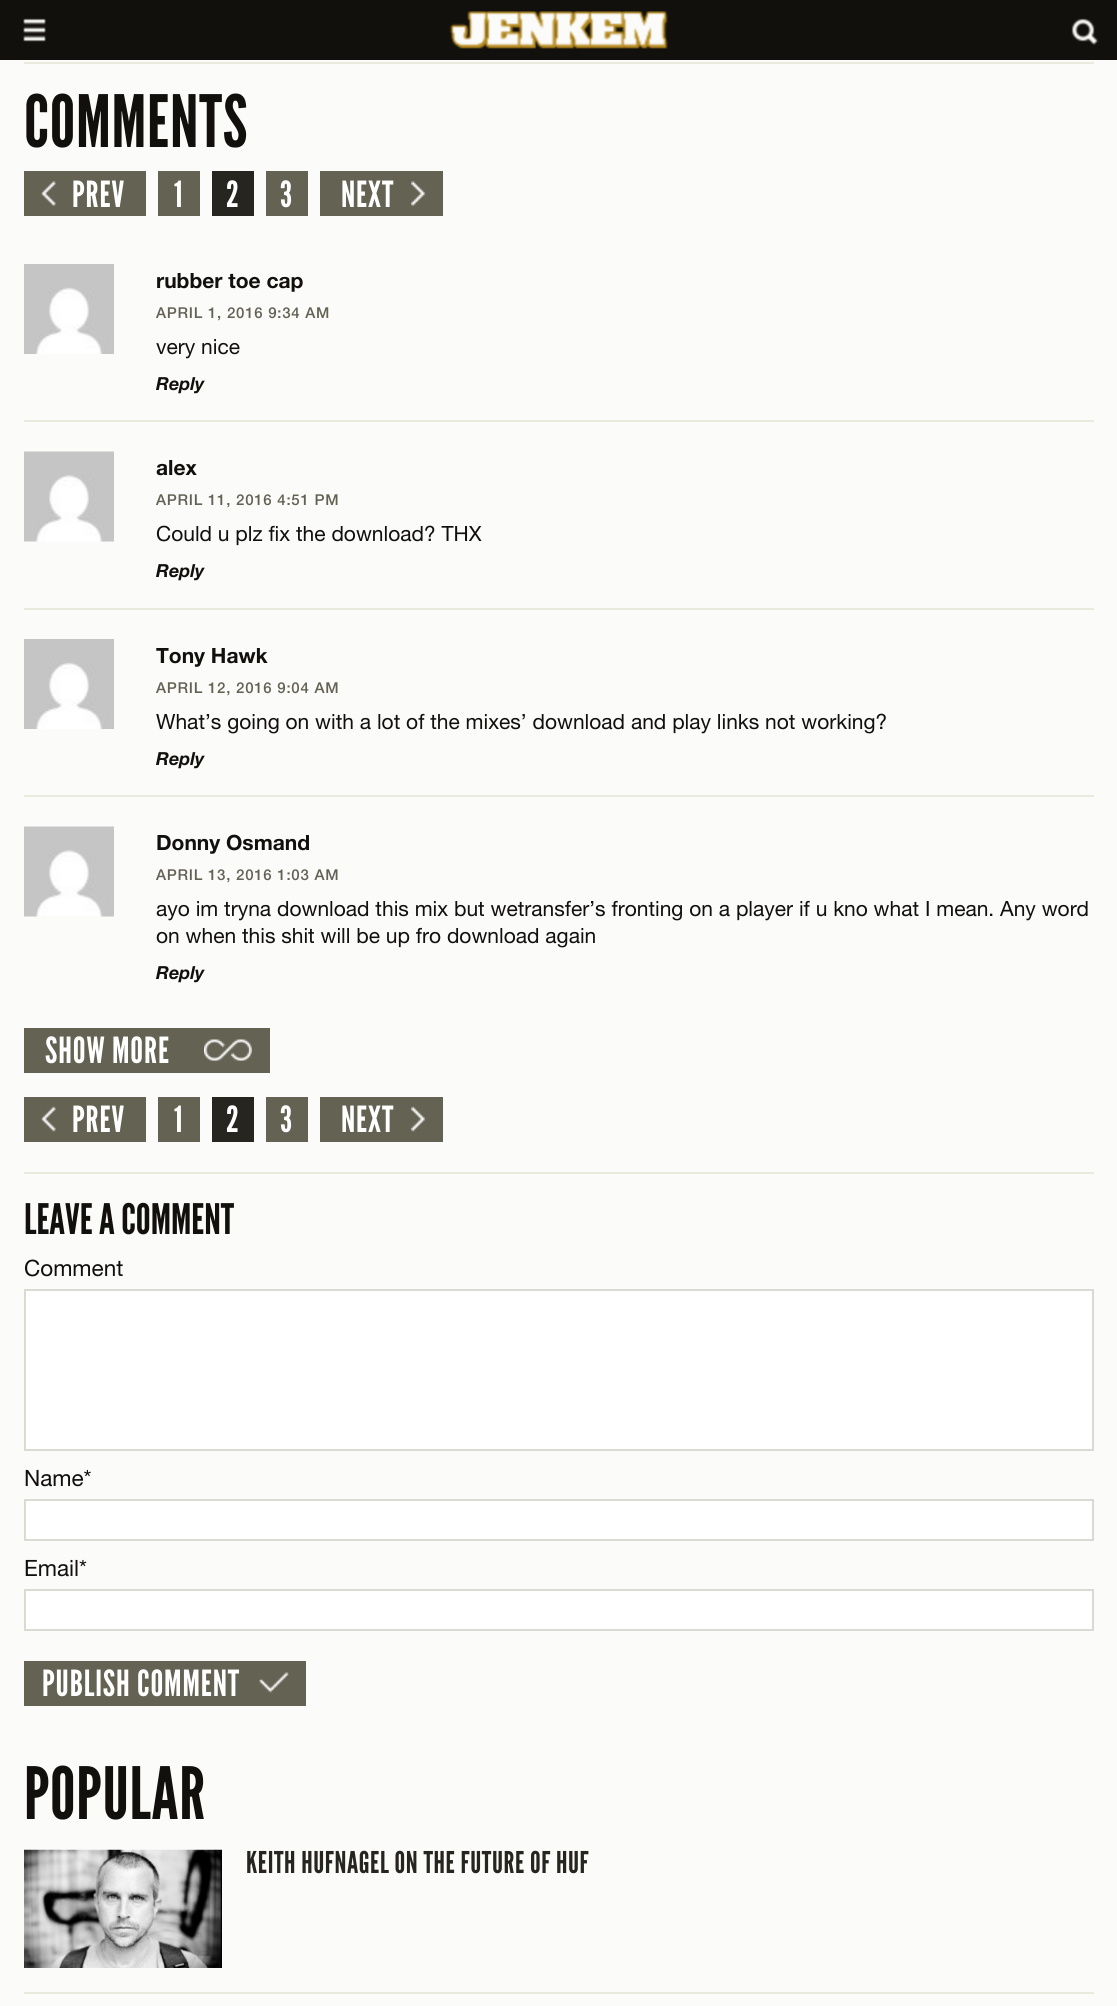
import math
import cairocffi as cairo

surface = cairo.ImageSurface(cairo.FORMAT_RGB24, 1117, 2006)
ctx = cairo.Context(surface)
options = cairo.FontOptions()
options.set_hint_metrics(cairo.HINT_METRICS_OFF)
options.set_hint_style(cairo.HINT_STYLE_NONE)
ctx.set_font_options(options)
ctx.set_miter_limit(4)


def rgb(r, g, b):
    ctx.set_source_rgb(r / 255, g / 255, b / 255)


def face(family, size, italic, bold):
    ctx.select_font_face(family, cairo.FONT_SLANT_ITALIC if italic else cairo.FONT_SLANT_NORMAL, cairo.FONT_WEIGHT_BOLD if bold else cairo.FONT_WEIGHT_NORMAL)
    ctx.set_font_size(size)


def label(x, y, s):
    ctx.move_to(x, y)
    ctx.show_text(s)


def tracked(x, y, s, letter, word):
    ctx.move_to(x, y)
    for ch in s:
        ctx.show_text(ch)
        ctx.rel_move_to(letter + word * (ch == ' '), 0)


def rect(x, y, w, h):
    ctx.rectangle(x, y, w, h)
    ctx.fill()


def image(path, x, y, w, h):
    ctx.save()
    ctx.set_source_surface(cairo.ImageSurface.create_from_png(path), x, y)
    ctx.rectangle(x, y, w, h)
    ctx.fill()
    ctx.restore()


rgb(251, 251, 250)
ctx.paint()
rgb(17, 16, 13)
rect(0, 0, 1117, 60)
image('image0.png', 449, 11, 219, 38)
image('image1.png', 23, 18, 23, 24)
image('image2.png', 1071, 18, 28, 28)
rgb(234, 233, 222)
rect(24, 62, 1070, 2)
face('League Gothic', 72, 0, 0)
rgb(17, 16, 13)
tracked(24, 147, 'COMMENTS', 0.75, 0)
rgb(100, 98, 83)
rect(24, 171, 122, 45)
image('image3.png', 41, 181, 15, 25)
face('League Gothic', 36, 0, 0)
rgb(255, 255, 255)
tracked(72, 207, 'PREV', 0.9, 0)
rgb(100, 98, 83)
rect(158, 171, 42, 45)
rgb(255, 255, 255)
tracked(174, 207, '1', 0.9, 0)
rgb(38, 37, 32)
rect(212, 171, 42, 45)
rgb(255, 255, 255)
tracked(226, 207, '2', 0.9, 0)
rgb(100, 98, 83)
rect(266, 171, 42, 45)
rgb(255, 255, 255)
tracked(280, 207, '3', 0.9, 0)
rgb(100, 98, 83)
rect(320, 171, 123, 45)
rgb(255, 255, 255)
tracked(341, 207, 'NEXT', 0.9, 0)
image('image4.png', 411, 181, 15, 25)
image('image5.png', 24, 264, 90, 90)
face('Helvetica Neue', 21, 0, 1)
rgb(17, 16, 13)
label(156, 288, 'rubber toe cap')
face('Helvetica Neue Medium', 15, 0, 0)
rgb(100, 98, 83)
tracked(156, 318, 'APRIL 1, 2016 9:34 AM', 0.75, 0)
face('Helvetica Neue', 21, 0, 0)
rgb(17, 16, 13)
label(156, 354, 'very nice')
face('Helvetica Neue', 18, 1, 1)
label(156, 390, 'Reply')
rgb(234, 233, 222)
rect(24, 420, 1070, 2)
image('image6.png', 24, 451, 90, 91)
face('Helvetica Neue', 21, 0, 1)
rgb(17, 16, 13)
label(156, 475, 'alex')
face('Helvetica Neue Medium', 15, 0, 0)
rgb(100, 98, 83)
tracked(156, 505, 'APRIL 11, 2016 4:51 PM', 0.75, 0)
face('Helvetica Neue', 21, 0, 0)
rgb(17, 16, 13)
label(156, 541, 'Could u plz fix the download? THX')
face('Helvetica Neue', 18, 1, 1)
label(156, 577, 'Reply')
rgb(234, 233, 222)
rect(24, 608, 1070, 2)
image('image5.png', 24, 639, 90, 90)
face('Helvetica Neue', 21, 0, 1)
rgb(17, 16, 13)
label(156, 663, 'Tony Hawk')
face('Helvetica Neue Medium', 15, 0, 0)
rgb(100, 98, 83)
tracked(156, 693, 'APRIL 12, 2016 9:04 AM', 0.75, 0)
face('Helvetica Neue', 21, 0, 0)
rgb(17, 16, 13)
label(156, 729, 'What’s going on with a lot of the mixes’ download and play links not working?')
face('Helvetica Neue', 18, 1, 1)
label(156, 765, 'Reply')
rgb(234, 233, 222)
rect(24, 795, 1070, 2)
image('image6.png', 24, 826, 90, 91)
face('Helvetica Neue', 21, 0, 1)
rgb(17, 16, 13)
label(156, 850, 'Donny Osmand')
face('Helvetica Neue Medium', 15, 0, 0)
rgb(100, 98, 83)
tracked(156, 880, 'APRIL 13, 2016 1:03 AM', 0.75, 0)
face('Helvetica Neue', 21, 0, 0)
rgb(17, 16, 13)
label(156, 916, 'ayo im tryna download this mix but wetransfer’s fronting on a player if u kno what I mean. Any word')
label(156, 943, 'on when this shit will be up fro download again')
face('Helvetica Neue', 18, 1, 1)
label(156, 979, 'Reply')
rgb(100, 98, 83)
rect(24, 1028, 246, 45)
face('League Gothic', 36, 0, 0)
rgb(255, 255, 255)
tracked(45, 1063, 'SHOW MORE', 0.9, 0)
image('image7.png', 204, 1039, 48, 23)
rgb(100, 98, 83)
rect(24, 1097, 122, 45)
image('image8.png', 41, 1106, 15, 26)
rgb(255, 255, 255)
tracked(72, 1132, 'PREV', 0.9, 0)
rgb(100, 98, 83)
rect(158, 1097, 42, 45)
rgb(255, 255, 255)
tracked(174, 1132, '1', 0.9, 0)
rgb(38, 37, 32)
rect(212, 1097, 42, 45)
rgb(255, 255, 255)
tracked(226, 1132, '2', 0.9, 0)
rgb(100, 98, 83)
rect(266, 1097, 42, 45)
rgb(255, 255, 255)
tracked(280, 1132, '3', 0.9, 0)
rgb(100, 98, 83)
rect(320, 1097, 123, 45)
rgb(255, 255, 255)
tracked(341, 1132, 'NEXT', 0.9, 0)
image('image9.png', 411, 1106, 15, 26)
rgb(234, 233, 222)
rect(24, 1172, 1070, 2)
face('League Gothic', 42, 0, 0)
rgb(17, 16, 13)
label(24, 1234, 'LEAVE A COMMENT')
face('Helvetica Neue', 22.5, 0, 0)
label(24, 1276, 'Comment')
rgb(255, 255, 255)
ctx.rectangle(25, 1290, 1068, 160)
ctx.fill_preserve()
rgb(218, 218, 211)
ctx.stroke()
rgb(17, 16, 13)
label(24, 1486, 'Name*')
rgb(255, 255, 255)
ctx.rectangle(25, 1500, 1068, 40)
ctx.fill_preserve()
rgb(218, 218, 211)
ctx.stroke()
rgb(17, 16, 13)
label(24, 1576, 'Email*')
rgb(255, 255, 255)
ctx.rectangle(25, 1590, 1068, 40)
ctx.fill_preserve()
rgb(218, 218, 211)
ctx.stroke()
rgb(100, 98, 83)
rect(24, 1661, 282, 45)
image('image10.png', 259, 1672, 30, 21)
face('League Gothic', 36, 0, 0)
rgb(255, 255, 255)
tracked(42, 1696, 'PUBLISH COMMENT', 0.9, 0)
face('League Gothic', 72, 0, 0)
rgb(17, 16, 13)
tracked(24, 1819, 'POPULAR', 0.75, 0)
image('image11.png', 24, 1849, 198, 119)
face('League Gothic', 30, 0, 0)
rgb(38, 37, 32)
tracked(246, 1873, 'KEITH HUFNAGEL ON THE FUTURE OF HUF', 0.6, 0)
rgb(234, 233, 222)
rect(24, 1992, 1070, 2)
surface.write_to_png('render.png')
